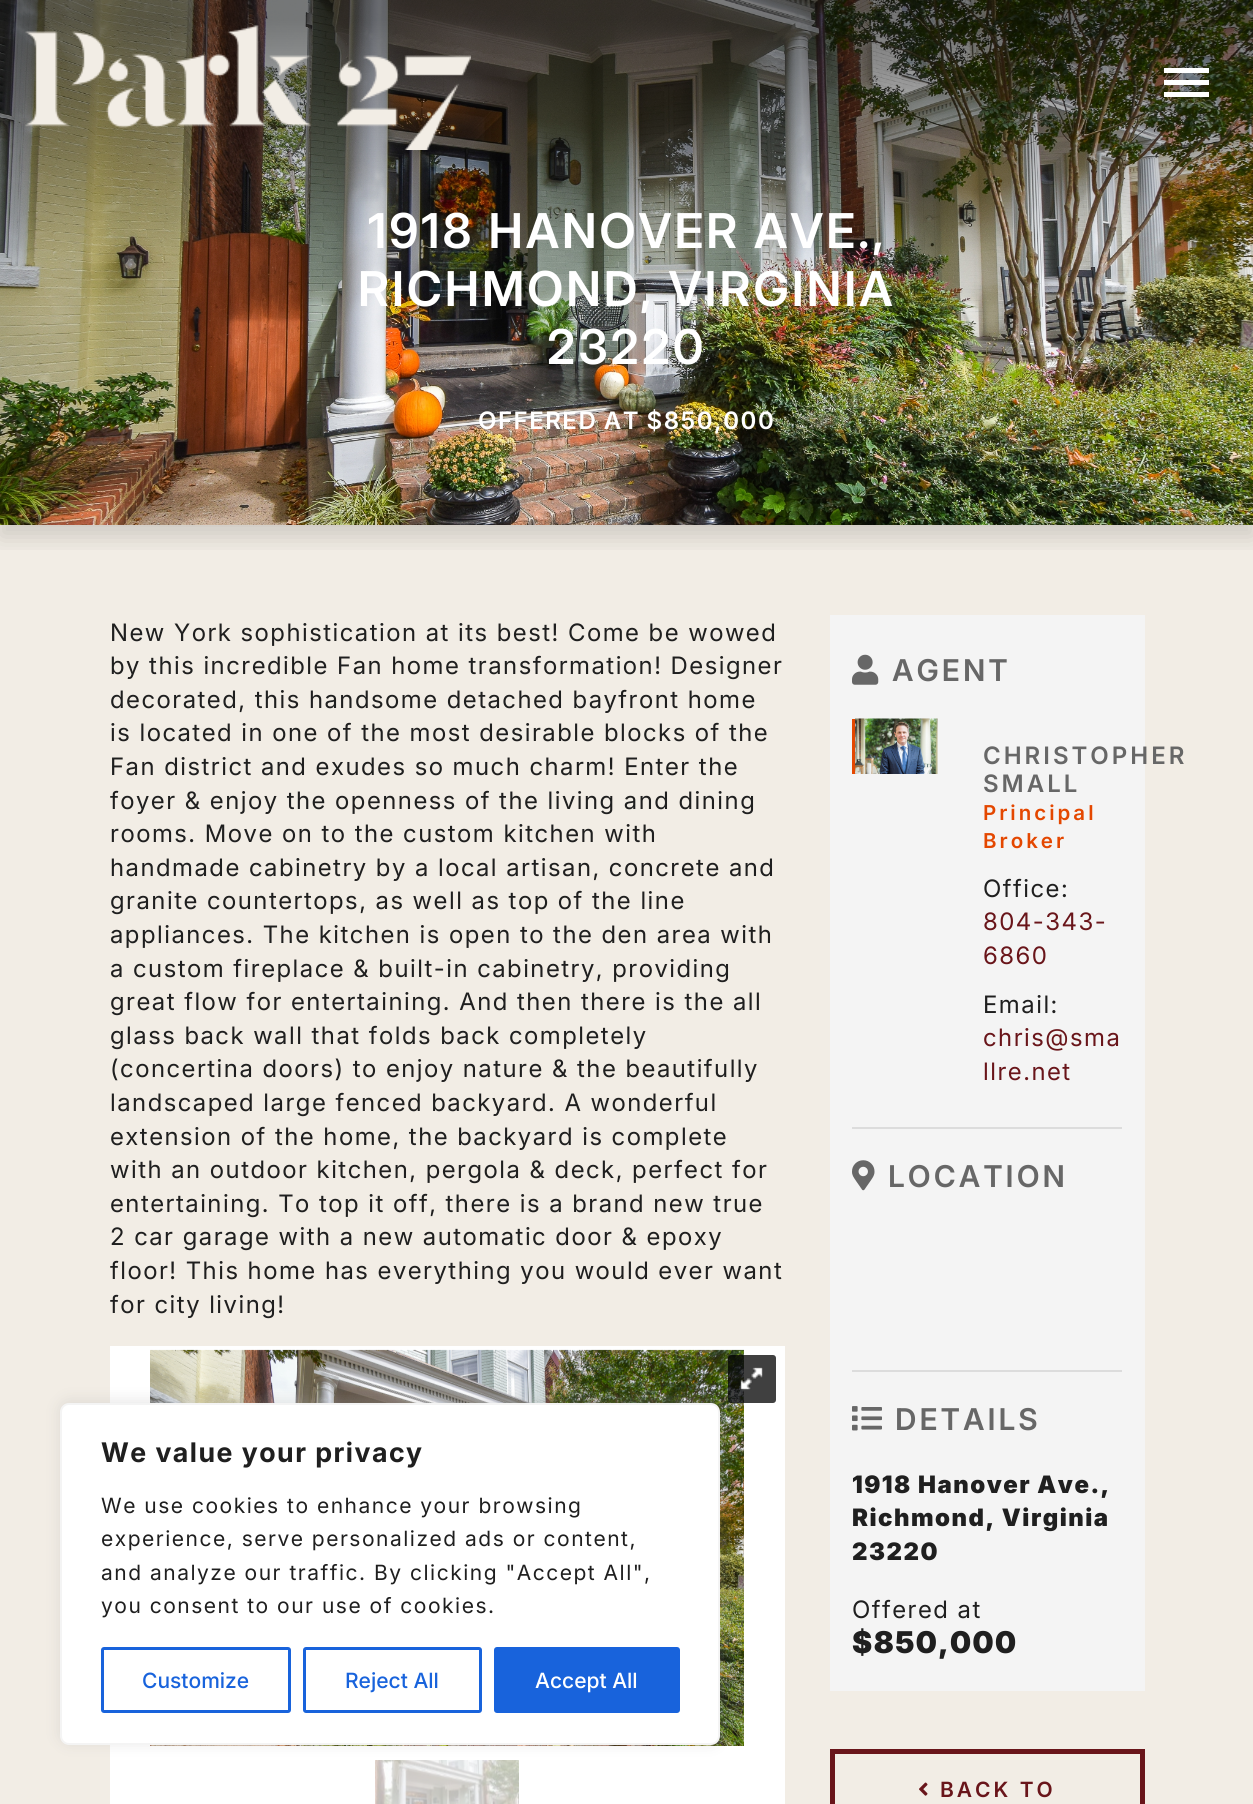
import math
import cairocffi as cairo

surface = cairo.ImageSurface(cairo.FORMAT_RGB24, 1253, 1804)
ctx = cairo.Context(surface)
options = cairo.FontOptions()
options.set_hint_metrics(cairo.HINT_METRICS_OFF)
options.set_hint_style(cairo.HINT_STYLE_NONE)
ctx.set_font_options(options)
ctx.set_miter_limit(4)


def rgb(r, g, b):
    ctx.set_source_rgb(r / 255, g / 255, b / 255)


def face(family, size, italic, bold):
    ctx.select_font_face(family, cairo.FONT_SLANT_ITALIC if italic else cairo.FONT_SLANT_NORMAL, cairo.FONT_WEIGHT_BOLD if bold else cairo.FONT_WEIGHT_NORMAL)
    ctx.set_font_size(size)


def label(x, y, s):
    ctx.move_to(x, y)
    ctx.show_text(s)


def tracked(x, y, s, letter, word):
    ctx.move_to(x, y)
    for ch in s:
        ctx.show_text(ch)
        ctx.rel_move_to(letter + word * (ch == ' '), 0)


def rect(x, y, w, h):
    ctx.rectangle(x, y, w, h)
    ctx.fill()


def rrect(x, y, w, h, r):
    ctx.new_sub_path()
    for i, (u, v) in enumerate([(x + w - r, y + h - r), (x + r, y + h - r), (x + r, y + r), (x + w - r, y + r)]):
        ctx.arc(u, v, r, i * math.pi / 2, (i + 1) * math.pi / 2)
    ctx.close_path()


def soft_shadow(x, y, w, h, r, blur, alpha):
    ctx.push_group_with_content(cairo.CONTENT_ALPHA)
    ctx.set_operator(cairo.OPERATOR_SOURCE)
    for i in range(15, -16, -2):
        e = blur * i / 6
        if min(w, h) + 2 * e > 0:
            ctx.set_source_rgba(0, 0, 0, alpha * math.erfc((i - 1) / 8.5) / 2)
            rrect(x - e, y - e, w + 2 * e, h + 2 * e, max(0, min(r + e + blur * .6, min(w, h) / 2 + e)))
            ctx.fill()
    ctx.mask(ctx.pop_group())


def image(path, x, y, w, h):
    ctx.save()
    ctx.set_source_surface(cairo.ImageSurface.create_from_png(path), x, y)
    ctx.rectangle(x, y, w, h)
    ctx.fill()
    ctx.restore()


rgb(242, 237, 229)
ctx.paint()
image('image1.png', 0, 0, 1253, 525)
ctx.save()
ctx.rectangle(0, 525, 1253, 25)
ctx.clip()
rgb(0, 0, 0)
soft_shadow(0, 12, 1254, 525, 0, 12, 0.15)
ctx.restore()
image('image0.png', 25, 25, 446, 125)
rgb(255, 255, 255)
rect(1164, 68, 45, 5)
rect(1164, 80, 45, 5)
rect(1164, 92, 45, 5)
face('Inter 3 SemiBold', 48, 0, 0)
tracked(368, 248, '1918 HANOVER AVE.,', 3, 0)
tracked(358, 306, 'RICHMOND, VIRGINIA', 3, 0)
tracked(547, 364, '23220', 3, 0)
face('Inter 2 SemiBold', 24, 0, 0)
tracked(478, 429, 'OFFERED AT $850,000', 1.5, -1)
face('Inter', 24, 0, 0)
rgb(31, 31, 31)
tracked(110, 641, 'New York sophistication at its best! Come be wowed', 1.5, 0)
tracked(110, 674, 'by this incredible Fan home transformation! Designer', 1.5, 0)
tracked(110, 708, 'decorated, this handsome detached bayfront home', 1.5, 0)
tracked(110, 741, 'is located in one of the most desirable blocks of the', 1.5, 0)
tracked(110, 775, 'Fan district and exudes so much charm! Enter the', 1.5, 0)
tracked(110, 809, 'foyer & enjoy the openness of the living and dining', 1.5, 0)
tracked(110, 842, 'rooms. Move on to the custom kitchen with', 1.5, 0)
tracked(110, 876, 'handmade cabinetry by a local artisan, concrete and', 1.5, 0)
tracked(110, 909, 'granite countertops, as well as top of the line', 1.5, 0)
tracked(110, 943, 'appliances. The kitchen is open to the den area with', 1.5, 0)
tracked(110, 977, 'a custom fireplace & built-in cabinetry, providing', 1.5, 0)
tracked(110, 1010, 'great flow for entertaining. And then there is the all', 1.5, 0)
tracked(110, 1044, 'glass back wall that folds back completely', 1.5, 0)
tracked(110, 1077, '(concertina doors) to enjoy nature & the beautifully', 1.5, 0)
tracked(110, 1111, 'landscaped large fenced backyard. A wonderful', 1.5, 0)
tracked(110, 1145, 'extension of the home, the backyard is complete', 1.5, 0)
tracked(110, 1178, 'with an outdoor kitchen, pergola & deck, perfect for', 1.5, 0)
tracked(110, 1212, 'entertaining. To top it off, there is a brand new true', 1.5, 0)
tracked(110, 1245, '2 car garage with a new automatic door & epoxy', 1.5, 0)
tracked(110, 1279, 'floor! This home has everything you would ever want', 1.5, 0)
tracked(110, 1313, 'for city living!', 1.5, 0)
rgb(255, 255, 255)
rect(110, 1346, 675, 458)
image('image2.png', 150, 1349, 594, 397)
ctx.set_source_rgba(0, 0, 0, 0.75)
rrect(728, 1355, 48, 48, 3)
ctx.fill()
image('image3.png', 740, 1367, 23, 23)
image('image4.png', 375, 1760, 144, 44)
rgb(244, 244, 244)
rect(830, 615, 315, 1076)
image('image5.png', 852, 654, 27, 31)
face('Inter SemiBold', 30, 0, 0)
rgb(103, 103, 103)
tracked(892, 681, 'AGENT', 3, 0)
rgb(228, 71, 0)
rect(852, 719, 3, 55)
image('image6.png', 855, 718, 83, 56)
face('Inter 2 SemiBold', 24, 0, 0)
rgb(103, 103, 103)
tracked(983, 764, 'CHRISTOPHER', 3, 0)
tracked(983, 792, 'SMALL', 3, 0)
face('Inter 2 SemiBold', 20.5, 0, 0)
rgb(228, 71, 0)
tracked(983, 820, 'Principal', 3, 0)
tracked(983, 848, 'Broker', 3, 0)
face('Inter', 24, 0, 0)
rgb(31, 31, 31)
tracked(983, 897, 'Office:', 1.5, 0)
rgb(105, 21, 26)
tracked(983, 930, '804-343-', 1.5, 0)
tracked(983, 964, '6860', 1.5, 0)
rgb(31, 31, 31)
tracked(983, 1013, 'Email:', 1.5, 0)
rgb(105, 21, 26)
tracked(983, 1046, 'chris@sma', 1.5, 0)
tracked(983, 1080, 'llre.net', 1.5, 0)
rgb(220, 220, 220)
rect(852, 1127, 270, 2)
image('image7.png', 852, 1160, 23, 31)
face('Inter SemiBold', 30, 0, 0)
rgb(103, 103, 103)
tracked(888, 1187, 'LOCATION', 3, 0)
rgb(220, 220, 220)
rect(852, 1370, 270, 2)
image('image8.png', 852, 1406, 30, 25)
rgb(103, 103, 103)
tracked(895, 1430, 'DETAILS', 3, 0)
face('Inter Black', 24, 0, 0)
rgb(31, 31, 31)
tracked(852, 1493, '1918 Hanover Ave.,', 1.5, 0)
tracked(852, 1526, 'Richmond, Virginia', 1.5, 0)
tracked(852, 1560, '23220', 1.5, 0)
face('Inter', 24, 0, 0)
tracked(852, 1618, 'Offered at', 1.5, 0)
face('Inter 2 Black', 30, 0, 0)
tracked(852, 1653, '$850,000', 1.5, 0)
ctx.rectangle(832.5, 1751.5, 310, 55)
rgb(105, 21, 26)
ctx.set_line_width(5)
ctx.stroke()
image('image9.png', 919, 1782, 9, 14)
face('Inter 2 SemiBold', 21, 0, 0)
tracked(940, 1797, 'BACK TO', 3, 0)
rgb(172, 171, 171)
soft_shadow(60, 1401, 660, 342, 9, 7.5, 0.3)
rgb(255, 255, 255)
rrect(61, 1404, 658, 340, 8)
ctx.fill_preserve()
rgb(244, 244, 244)
ctx.set_line_width(2)
ctx.stroke()
face('Inter', 27, 0, 1)
rgb(31, 31, 31)
tracked(101, 1462, 'We value your privacy', 1.5, 0)
face('Inter 2', 21, 0, 0)
tracked(101, 1513, 'We use cookies to enhance your browsing', 1.5, 0)
tracked(101, 1546, 'experience, serve personalized ads or content,', 1.5, 0)
tracked(101, 1580, 'and analyze our traffic. By clicking "Accept All",', 1.5, 0)
tracked(101, 1613, 'you consent to our use of cookies.', 1.5, 0)
rrect(102.5, 1648.5, 187, 63, 1.5)
rgb(24, 99, 220)
ctx.set_line_width(3)
ctx.stroke()
face('Inter Medium', 21, 0, 0)
label(142, 1688, 'Customize')
rrect(304.5, 1648.5, 176, 63, 1.5)
ctx.stroke()
label(345, 1688, 'Reject All')
rrect(495.5, 1648.5, 183, 63, 1.5)
ctx.fill_preserve()
ctx.stroke()
rgb(255, 255, 255)
label(535, 1688, 'Accept All')
surface.write_to_png('render.png')
